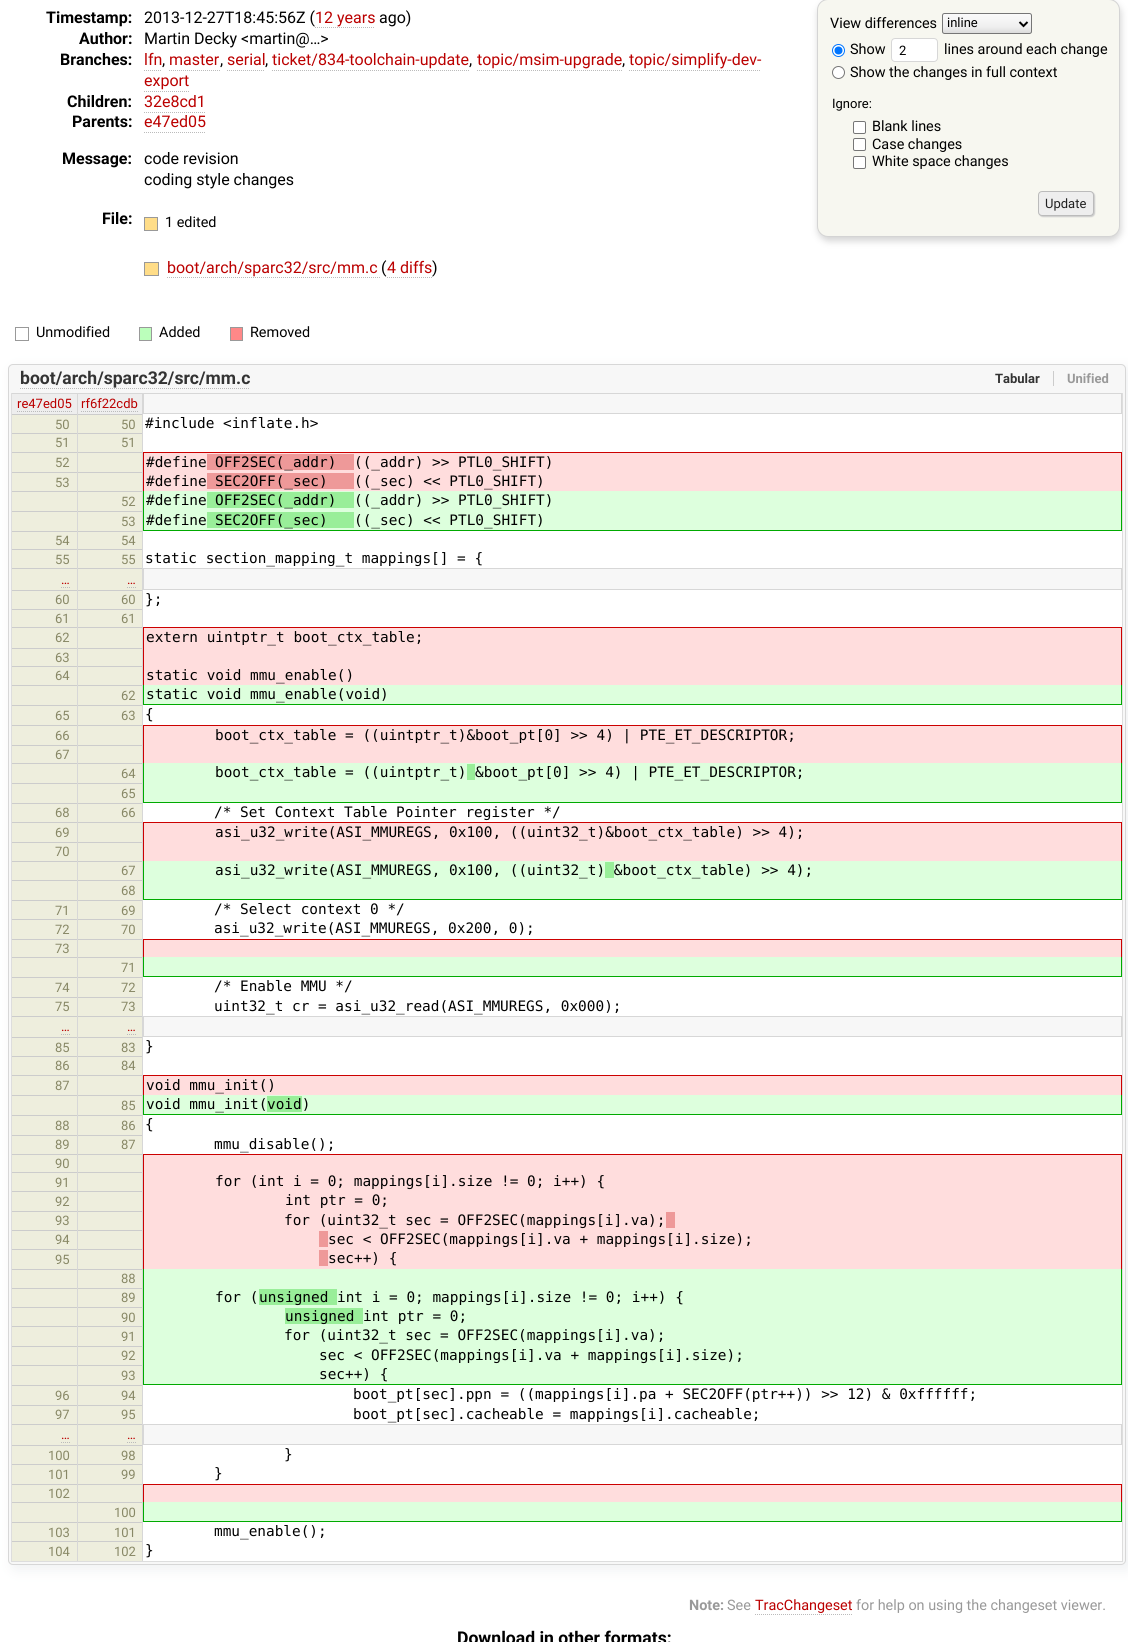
import math
import cairocffi as cairo

surface = cairo.ImageSurface(cairo.FORMAT_RGB24, 1128, 1642)
ctx = cairo.Context(surface)
options = cairo.FontOptions()
options.set_hint_metrics(cairo.HINT_METRICS_OFF)
options.set_hint_style(cairo.HINT_STYLE_NONE)
ctx.set_font_options(options)
ctx.set_miter_limit(4)


def rgb(r, g, b):
    ctx.set_source_rgb(r / 255, g / 255, b / 255)


def face(family, size, italic, bold):
    ctx.select_font_face(family, cairo.FONT_SLANT_ITALIC if italic else cairo.FONT_SLANT_NORMAL, cairo.FONT_WEIGHT_BOLD if bold else cairo.FONT_WEIGHT_NORMAL)
    ctx.set_font_size(size)


def label(x, y, s):
    ctx.move_to(x, y)
    ctx.show_text(s)


def rect(x, y, w, h):
    ctx.rectangle(x, y, w, h)
    ctx.fill()


def rrect(x, y, w, h, r):
    ctx.new_sub_path()
    for i, (u, v) in enumerate([(x + w - r, y + h - r), (x + r, y + h - r), (x + r, y + r), (x + w - r, y + r)]):
        ctx.arc(u, v, r, i * math.pi / 2, (i + 1) * math.pi / 2)
    ctx.close_path()


def soft_shadow(x, y, w, h, r, blur, alpha):
    ctx.push_group_with_content(cairo.CONTENT_ALPHA)
    ctx.set_operator(cairo.OPERATOR_SOURCE)
    for i in range(15, -16, -2):
        e = blur * i / 6
        if min(w, h) + 2 * e > 0:
            ctx.set_source_rgba(0, 0, 0, alpha * math.erfc((i - 1) / 8.5) / 2)
            rrect(x - e, y - e, w + 2 * e, h + 2 * e, max(0, min(r + e + blur * .6, min(w, h) / 2 + e)))
            ctx.fill()
    ctx.mask(ctx.pop_group())


rgb(255, 255, 255)
ctx.paint()
face('Roboto', 16, 0, 1)
rgb(0, 0, 0)
label(46, 23, 'Timestamp:')
face('Roboto', 16, 0, 0)
label(144, 23, '2013-12-27T18:45:56Z (')
rgb(187, 0, 0)
label(315, 23, '12 years')
ctx.new_path()
ctx.move_to(315, 27.5)
ctx.line_to(375, 27.5)
rgb(187, 187, 187)
ctx.set_line_width(1)
ctx.set_dash([1, 1])
ctx.stroke()
rgb(0, 0, 0)
label(379, 23, 'ago)')
face('Roboto', 16, 0, 1)
label(79, 44, 'Author:')
face('Roboto', 16, 0, 0)
label(144, 44, 'Martin Decky <martin@…>')
face('Roboto', 16, 0, 1)
label(60, 65, 'Branches:')
face('Roboto', 16, 0, 0)
rgb(187, 0, 0)
label(144, 65, 'lfn')
ctx.new_path()
ctx.move_to(144, 70.5)
ctx.line_to(162, 70.5)
rgb(187, 187, 187)
ctx.stroke()
rgb(0, 0, 0)
label(162, 65, ',')
rgb(187, 0, 0)
label(169, 65, 'master')
ctx.new_path()
ctx.move_to(169, 70.5)
ctx.line_to(220, 70.5)
rgb(187, 187, 187)
ctx.stroke()
rgb(0, 0, 0)
label(220, 65, ',')
rgb(187, 0, 0)
label(227, 65, 'serial')
ctx.new_path()
ctx.move_to(227, 70.5)
ctx.line_to(265, 70.5)
rgb(187, 187, 187)
ctx.stroke()
rgb(0, 0, 0)
label(265, 65, ',')
rgb(187, 0, 0)
label(272, 65, 'ticket/834-toolchain-update')
ctx.new_path()
ctx.move_to(272, 70.5)
ctx.line_to(469, 70.5)
rgb(187, 187, 187)
ctx.stroke()
rgb(0, 0, 0)
label(469, 65, ',')
rgb(187, 0, 0)
label(477, 65, 'topic/msim-upgrade')
ctx.new_path()
ctx.move_to(477, 70.5)
ctx.line_to(622, 70.5)
rgb(187, 187, 187)
ctx.stroke()
rgb(0, 0, 0)
label(622, 65, ',')
rgb(187, 0, 0)
label(629, 65, 'topic/simplify-dev-')
ctx.new_path()
ctx.move_to(629, 70.5)
ctx.line_to(761, 70.5)
rgb(187, 187, 187)
ctx.stroke()
rgb(187, 0, 0)
label(144, 86, 'export')
ctx.new_path()
ctx.move_to(144, 91.5)
ctx.line_to(189, 91.5)
rgb(187, 187, 187)
ctx.stroke()
face('Roboto', 16, 0, 1)
rgb(0, 0, 0)
label(67, 107, 'Children:')
face('Roboto', 16, 0, 0)
rgb(187, 0, 0)
label(144, 107, '32e8cd1')
ctx.new_path()
ctx.move_to(144, 112.5)
ctx.line_to(206, 112.5)
rgb(187, 187, 187)
ctx.stroke()
face('Roboto', 16, 0, 1)
rgb(0, 0, 0)
label(72, 127, 'Parents:')
face('Roboto', 16, 0, 0)
rgb(187, 0, 0)
label(144, 127, 'e47ed05')
ctx.new_path()
ctx.move_to(144, 132.5)
ctx.line_to(206, 132.5)
rgb(187, 187, 187)
ctx.stroke()
face('Roboto', 16, 0, 1)
rgb(0, 0, 0)
label(62, 164, 'Message:')
face('Roboto', 16, 0, 0)
label(144, 164, 'code revision')
label(144, 185, 'coding style changes')
face('Roboto', 16, 0, 1)
label(102, 224, 'File:')
rgb(255, 221, 136)
ctx.rectangle(144.5, 217.5, 13, 13)
ctx.fill_preserve()
rgb(153, 153, 153)
ctx.set_dash([])
ctx.stroke()
face('Roboto', 14.4, 0, 0)
rgb(0, 0, 0)
label(165, 227, '1 edited')
rgb(255, 221, 136)
ctx.rectangle(144.5, 262.5, 14, 13)
ctx.fill_preserve()
rgb(153, 153, 153)
ctx.stroke()
face('Roboto', 16, 0, 0)
rgb(187, 0, 0)
label(167, 273, 'boot/arch/sparc32/src/mm.c')
ctx.new_path()
ctx.move_to(167, 277.5)
ctx.line_to(381, 277.5)
rgb(187, 187, 187)
ctx.set_dash([1, 1])
ctx.stroke()
rgb(0, 0, 0)
label(381, 273, '(')
rgb(187, 0, 0)
label(387, 273, '4 diffs')
ctx.new_path()
ctx.move_to(387, 277.5)
ctx.line_to(432, 277.5)
rgb(187, 187, 187)
ctx.stroke()
rgb(0, 0, 0)
label(432, 273, ')')
rgb(212, 212, 212)
soft_shadow(818, 3, 303, 238, 11, 3.5, 1)
rgb(247, 247, 240)
rrect(817.5, -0.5, 302, 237, 10.5)
ctx.fill_preserve()
rgb(212, 212, 212)
ctx.set_dash([])
ctx.stroke()
face('Roboto', 14.4, 0, 0)
rgb(0, 0, 0)
label(830, 28, 'View differences')
ctx.save()
rrect(942, 13, 90, 21, 2.5)
ctx.clip()
gradient = cairo.LinearGradient(987, 33, 987, 14)
gradient.add_color_stop_rgba(0, 0.859, 0.859, 0.859, 1)
gradient.add_color_stop_rgba(0.3, 0.933, 0.933, 0.933, 1)
gradient.add_color_stop_rgba(1, 0.984, 0.984, 0.984, 1)
ctx.set_source(gradient)
rect(942, 14, 90, 19)
ctx.restore()
rrect(942.5, 13.5, 89, 20, 2)
rgb(118, 118, 118)
ctx.stroke()
ctx.new_path()
ctx.move_to(1019.5, 22)
ctx.line_to(1023.5, 26)
ctx.line_to(1027.5, 22)
rgb(0, 0, 0)
ctx.set_line_width(2)
ctx.stroke()
face('Roboto', 13, 0, 0)
label(947, 27, 'inline')
rgb(255, 255, 255)
ctx.new_path()
ctx.arc(838.5, 50.5, 6, 0, 2 * math.pi)
ctx.fill_preserve()
rgb(0, 117, 255)
ctx.set_line_width(1)
ctx.stroke()
ctx.arc(838.5, 50.5, 4, 0, 2 * math.pi)
ctx.fill()
face('Roboto', 14.4, 0, 0)
rgb(0, 0, 0)
label(850, 54, 'Show')
rgb(255, 255, 255)
rrect(891.5, 38.5, 46, 23, 3.5)
ctx.fill_preserve()
rgb(215, 215, 215)
ctx.stroke()
face('Roboto', 13, 0, 0)
rgb(0, 0, 0)
label(899, 55, '2')
face('Roboto', 14.4, 0, 0)
label(944, 54, 'lines around each change')
rgb(255, 255, 255)
ctx.new_path()
ctx.arc(838.5, 72.5, 6, 0, 2 * math.pi)
ctx.fill_preserve()
rgb(118, 118, 118)
ctx.stroke()
rgb(0, 0, 0)
label(850, 77, 'Show the changes in full context')
face('Roboto', 13, 0, 0)
label(832, 108, 'Ignore:')
rgb(255, 255, 255)
rrect(853.5, 121.5, 12, 12, 1.5)
ctx.fill_preserve()
rgb(118, 118, 118)
ctx.stroke()
face('Roboto', 14.4, 0, 0)
rgb(0, 0, 0)
label(872, 131, 'Blank lines')
rgb(255, 255, 255)
rrect(853.5, 138.5, 12, 12, 1.5)
ctx.fill_preserve()
rgb(118, 118, 118)
ctx.stroke()
rgb(0, 0, 0)
label(872, 149, 'Case changes')
rgb(255, 255, 255)
rrect(853.5, 156.5, 12, 12, 1.5)
ctx.fill_preserve()
rgb(118, 118, 118)
ctx.stroke()
rgb(0, 0, 0)
label(872, 166, 'White space changes')
rgb(204, 204, 204)
soft_shadow(1039, 192, 56, 25, 4, 0.5, 1)
rgb(238, 238, 238)
rrect(1038.5, 191.5, 55, 24, 3.5)
ctx.fill_preserve()
rgb(187, 187, 187)
ctx.stroke()
face('Roboto', 13, 0, 0)
rgb(34, 34, 34)
label(1045, 208, 'Update')
ctx.rectangle(15.5, 327.5, 13, 13)
rgb(153, 153, 153)
ctx.stroke()
face('Roboto', 14.4, 0, 0)
rgb(0, 0, 0)
label(36, 337, 'Unmodified')
rgb(187, 255, 187)
ctx.rectangle(139.5, 327.5, 12, 13)
ctx.fill_preserve()
rgb(153, 153, 153)
ctx.stroke()
rgb(0, 0, 0)
label(159, 337, 'Added')
rgb(255, 136, 136)
ctx.rectangle(230.5, 327.5, 12, 13)
ctx.fill_preserve()
rgb(153, 153, 153)
ctx.stroke()
rgb(0, 0, 0)
label(250, 337, 'Removed')
rgb(210, 215, 220)
soft_shadow(11, 367, 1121, 1204, 6, 6, 0.3)
rgb(247, 247, 247)
rrect(8.5, 364.5, 1117, 1200, 4.5)
ctx.fill_preserve()
rgb(215, 215, 215)
ctx.stroke()
face('Roboto', 17.6, 0, 1)
rgb(51, 51, 51)
label(20, 384, 'boot/arch/sparc32/src/mm.c')
ctx.new_path()
ctx.move_to(20, 388.5)
ctx.line_to(250, 388.5)
rgb(187, 187, 187)
ctx.set_dash([1, 1])
ctx.stroke()
face('Roboto', 13, 0, 1)
rgb(51, 51, 51)
label(995, 383, 'Tabular')
rgb(153, 153, 153)
label(1067, 383, 'Unified')
rgb(204, 204, 204)
rect(1053, 371, 1, 15)
rgb(221, 221, 221)
rect(1122, 393, 1, 1169)
rect(11, 1561, 1112, 1)
rect(11, 393, 1, 1169)
rgb(238, 238, 238)
rect(12, 394, 65, 20)
rgb(215, 215, 215)
rect(12, 393, 131, 1)
rect(77, 393, 1, 21)
face('Roboto', 13, 0, 0)
rgb(187, 0, 0)
label(17, 408, 're47ed05')
ctx.new_path()
ctx.move_to(17, 411.5)
ctx.line_to(72, 411.5)
rgb(187, 187, 187)
ctx.stroke()
rgb(238, 238, 238)
rect(78, 394, 64, 20)
rgb(215, 215, 215)
rect(142, 393, 1, 21)
rgb(187, 0, 0)
label(81, 408, 'rf6f22cdb')
ctx.new_path()
ctx.move_to(81, 411.5)
ctx.line_to(138, 411.5)
rgb(187, 187, 187)
ctx.stroke()
ctx.rectangle(143.5, 393.5, 978, 20)
rgb(215, 215, 215)
ctx.set_dash([])
ctx.stroke()
rgb(238, 238, 221)
rect(12, 415, 65, 18)
rgb(204, 204, 204)
rect(12, 414, 131, 1)
rgb(215, 215, 215)
rect(77, 414, 1, 19)
rgb(136, 136, 102)
label(55, 429, '50')
rgb(238, 238, 221)
rect(78, 415, 64, 18)
rgb(215, 215, 215)
rect(142, 414, 1, 19)
rgb(136, 136, 102)
label(121, 429, '50')
rgb(255, 255, 255)
rect(143, 414, 979, 38)
face('DejaVu Sans Mono', 14.4, 0, 0)
rgb(0, 0, 0)
label(145, 428, '#include <inflate.h>')
rgb(238, 238, 221)
rect(12, 434, 65, 18)
rgb(204, 204, 204)
rect(12, 433, 131, 1)
rgb(215, 215, 215)
rect(77, 433, 1, 19)
face('Roboto', 13, 0, 0)
rgb(136, 136, 102)
label(55, 447, '51')
rgb(238, 238, 221)
rect(78, 434, 64, 18)
rgb(215, 215, 215)
rect(142, 433, 1, 19)
rgb(136, 136, 102)
label(121, 447, '51')
rgb(238, 238, 221)
rect(12, 453, 65, 19)
rgb(204, 204, 204)
rect(12, 452, 131, 1)
rgb(215, 215, 215)
rect(77, 452, 1, 20)
rgb(136, 136, 102)
label(55, 467, '52')
rgb(238, 238, 221)
rect(78, 453, 64, 19)
rgb(215, 215, 215)
rect(142, 452, 1, 20)
rgb(255, 221, 221)
rect(144, 453, 977, 38)
rgb(204, 0, 0)
rect(143, 452, 979, 1)
rect(1121, 452, 1, 39)
rect(143, 452, 1, 39)
face('DejaVu Sans Mono', 14.4, 0, 0)
rgb(0, 0, 0)
label(146, 467, '#define')
rgb(238, 153, 153)
rect(207, 454, 147, 16)
rgb(0, 0, 0)
label(215, 467, 'OFF2SEC(_addr)')
label(354, 467, '((_addr) >> PTL0_SHIFT)')
rgb(238, 238, 221)
rect(12, 473, 65, 18)
rgb(204, 204, 204)
rect(12, 472, 131, 1)
rgb(215, 215, 215)
rect(77, 472, 1, 19)
face('Roboto', 13, 0, 0)
rgb(136, 136, 102)
label(55, 487, '53')
rgb(238, 238, 221)
rect(78, 473, 64, 18)
rgb(215, 215, 215)
rect(142, 472, 1, 19)
face('DejaVu Sans Mono', 14.4, 0, 0)
rgb(0, 0, 0)
label(146, 486, '#define')
rgb(238, 153, 153)
rect(207, 473, 147, 16)
rgb(0, 0, 0)
label(215, 486, 'SEC2OFF(_sec)')
label(354, 486, '((_sec) << PTL0_SHIFT)')
rgb(238, 238, 221)
rect(12, 492, 65, 19)
rgb(204, 204, 204)
rect(12, 491, 131, 1)
rgb(215, 215, 215)
rect(77, 491, 1, 20)
rgb(221, 255, 221)
rect(144, 491, 977, 39)
rgb(0, 170, 0)
rect(1121, 491, 1, 40)
rect(143, 491, 1, 20)
rgb(0, 0, 0)
label(146, 505, '#define')
rgb(153, 238, 153)
rect(207, 492, 147, 16)
rgb(0, 0, 0)
label(215, 505, 'OFF2SEC(_addr)')
label(354, 505, '((_addr) >> PTL0_SHIFT)')
rgb(238, 238, 221)
rect(78, 492, 64, 19)
rgb(215, 215, 215)
rect(142, 491, 1, 20)
face('Roboto', 13, 0, 0)
rgb(136, 136, 102)
label(121, 506, '52')
rgb(238, 238, 221)
rect(12, 512, 65, 19)
rgb(204, 204, 204)
rect(12, 511, 131, 1)
rgb(215, 215, 215)
rect(77, 511, 1, 20)
rgb(0, 170, 0)
rect(143, 530, 979, 1)
rect(143, 511, 1, 20)
face('DejaVu Sans Mono', 14.4, 0, 0)
rgb(0, 0, 0)
label(146, 525, '#define')
rgb(153, 238, 153)
rect(207, 512, 147, 16)
rgb(0, 0, 0)
label(215, 525, 'SEC2OFF(_sec)')
label(354, 525, '((_sec) << PTL0_SHIFT)')
rgb(238, 238, 221)
rect(78, 512, 64, 19)
rgb(215, 215, 215)
rect(142, 511, 1, 20)
face('Roboto', 13, 0, 0)
rgb(136, 136, 102)
label(121, 526, '53')
rgb(238, 238, 221)
rect(12, 532, 65, 17)
rgb(204, 204, 204)
rect(12, 531, 131, 1)
rgb(215, 215, 215)
rect(77, 531, 1, 18)
rgb(136, 136, 102)
label(55, 545, '54')
rgb(238, 238, 221)
rect(78, 532, 64, 17)
rgb(215, 215, 215)
rect(142, 531, 1, 18)
rgb(136, 136, 102)
label(121, 545, '54')
rgb(255, 255, 255)
rect(143, 531, 979, 37)
rgb(238, 238, 221)
rect(12, 550, 65, 18)
rgb(204, 204, 204)
rect(12, 549, 131, 1)
rgb(215, 215, 215)
rect(77, 549, 1, 19)
rgb(136, 136, 102)
label(55, 564, '55')
rgb(238, 238, 221)
rect(78, 550, 64, 18)
rgb(215, 215, 215)
rect(142, 549, 1, 19)
rgb(136, 136, 102)
label(121, 564, '55')
face('DejaVu Sans Mono', 14.4, 0, 0)
rgb(0, 0, 0)
label(145, 563, 'static section_mapping_t mappings[] = {')
rgb(238, 238, 221)
rect(12, 569, 65, 21)
rgb(204, 204, 204)
rect(12, 568, 131, 1)
rgb(215, 215, 215)
rect(77, 568, 1, 22)
face('Roboto', 13, 0, 0)
rgb(187, 0, 0)
label(61, 584, '…')
ctx.new_path()
ctx.move_to(61, 587.5)
ctx.line_to(70, 587.5)
rgb(187, 187, 187)
ctx.set_dash([1, 1])
ctx.stroke()
rgb(238, 238, 221)
rect(78, 569, 64, 21)
rgb(215, 215, 215)
rect(142, 568, 1, 22)
rgb(187, 0, 0)
label(127, 584, '…')
ctx.new_path()
ctx.move_to(127, 587.5)
ctx.line_to(136, 587.5)
rgb(187, 187, 187)
ctx.stroke()
ctx.rectangle(143.5, 568.5, 978, 21)
rgb(215, 215, 215)
ctx.set_dash([])
ctx.stroke()
rgb(238, 238, 221)
rect(12, 591, 65, 18)
rgb(204, 204, 204)
rect(12, 590, 131, 1)
rgb(215, 215, 215)
rect(77, 590, 1, 19)
rgb(136, 136, 102)
label(55, 604, '60')
rgb(238, 238, 221)
rect(78, 591, 64, 18)
rgb(215, 215, 215)
rect(142, 590, 1, 19)
rgb(136, 136, 102)
label(121, 604, '60')
rgb(255, 255, 255)
rect(143, 590, 979, 37)
face('DejaVu Sans Mono', 14.4, 0, 0)
rgb(0, 0, 0)
label(145, 604, '};')
rgb(238, 238, 221)
rect(12, 610, 65, 17)
rgb(204, 204, 204)
rect(12, 609, 131, 1)
rgb(215, 215, 215)
rect(77, 609, 1, 18)
face('Roboto', 13, 0, 0)
rgb(136, 136, 102)
label(55, 623, '61')
rgb(238, 238, 221)
rect(78, 610, 64, 17)
rgb(215, 215, 215)
rect(142, 609, 1, 18)
rgb(136, 136, 102)
label(121, 623, '61')
rgb(238, 238, 221)
rect(12, 628, 65, 20)
rgb(204, 204, 204)
rect(12, 627, 131, 1)
rgb(215, 215, 215)
rect(77, 627, 1, 21)
rgb(136, 136, 102)
label(55, 642, '62')
rgb(238, 238, 221)
rect(78, 628, 64, 20)
rgb(215, 215, 215)
rect(142, 627, 1, 21)
rgb(255, 221, 221)
rect(144, 628, 977, 57)
rgb(204, 0, 0)
rect(143, 627, 979, 1)
rect(1121, 627, 1, 58)
rect(143, 627, 1, 58)
face('DejaVu Sans Mono', 14.4, 0, 0)
rgb(0, 0, 0)
label(146, 642, 'extern uintptr_t boot_ctx_table;')
rgb(238, 238, 221)
rect(12, 649, 65, 17)
rgb(204, 204, 204)
rect(12, 648, 131, 1)
rgb(215, 215, 215)
rect(77, 648, 1, 18)
face('Roboto', 13, 0, 0)
rgb(136, 136, 102)
label(55, 662, '63')
rgb(238, 238, 221)
rect(78, 649, 64, 17)
rgb(215, 215, 215)
rect(142, 648, 1, 18)
rgb(238, 238, 221)
rect(12, 667, 65, 18)
rgb(204, 204, 204)
rect(12, 666, 131, 1)
rgb(215, 215, 215)
rect(77, 666, 1, 19)
rgb(136, 136, 102)
label(55, 680, '64')
rgb(238, 238, 221)
rect(78, 667, 64, 18)
rgb(215, 215, 215)
rect(142, 666, 1, 19)
face('DejaVu Sans Mono', 14.4, 0, 0)
rgb(0, 0, 0)
label(146, 680, 'static void mmu_enable()')
rgb(238, 238, 221)
rect(12, 686, 65, 19)
rgb(204, 204, 204)
rect(12, 685, 131, 1)
rgb(215, 215, 215)
rect(77, 685, 1, 20)
rgb(221, 255, 221)
rect(144, 685, 977, 19)
rgb(0, 170, 0)
rect(1121, 685, 1, 20)
rect(143, 704, 979, 1)
rect(143, 685, 1, 20)
rgb(0, 0, 0)
label(146, 699, 'static void mmu_enable(void)')
rgb(238, 238, 221)
rect(78, 686, 64, 19)
rgb(215, 215, 215)
rect(142, 685, 1, 20)
face('Roboto', 13, 0, 0)
rgb(136, 136, 102)
label(121, 700, '62')
rgb(238, 238, 221)
rect(12, 706, 65, 19)
rgb(204, 204, 204)
rect(12, 705, 131, 1)
rgb(215, 215, 215)
rect(77, 705, 1, 20)
rgb(136, 136, 102)
label(55, 720, '65')
rgb(238, 238, 221)
rect(78, 706, 64, 19)
rgb(215, 215, 215)
rect(142, 705, 1, 20)
rgb(136, 136, 102)
label(121, 720, '63')
rgb(255, 255, 255)
rect(143, 705, 979, 20)
face('DejaVu Sans Mono', 14.4, 0, 0)
rgb(0, 0, 0)
label(145, 719, '{')
rgb(238, 238, 221)
rect(12, 726, 65, 19)
rgb(204, 204, 204)
rect(12, 725, 131, 1)
rgb(215, 215, 215)
rect(77, 725, 1, 20)
face('Roboto', 13, 0, 0)
rgb(136, 136, 102)
label(55, 740, '66')
rgb(238, 238, 221)
rect(78, 726, 64, 19)
rgb(215, 215, 215)
rect(142, 725, 1, 20)
rgb(255, 221, 221)
rect(144, 726, 977, 37)
rgb(204, 0, 0)
rect(143, 725, 979, 1)
rect(1121, 725, 1, 38)
rect(143, 725, 1, 38)
face('DejaVu Sans Mono', 14.4, 0, 0)
rgb(0, 0, 0)
label(215, 740, 'boot_ctx_table = ((uintptr_t)&boot_pt[0] >> 4) | PTE_ET_DESCRIPTOR;')
rgb(238, 238, 221)
rect(12, 746, 65, 17)
rgb(204, 204, 204)
rect(12, 745, 131, 1)
rgb(215, 215, 215)
rect(77, 745, 1, 18)
face('Roboto', 13, 0, 0)
rgb(136, 136, 102)
label(55, 759, '67')
rgb(238, 238, 221)
rect(78, 746, 64, 17)
rgb(215, 215, 215)
rect(142, 745, 1, 18)
rgb(238, 238, 221)
rect(12, 764, 65, 19)
rgb(204, 204, 204)
rect(12, 763, 131, 1)
rgb(215, 215, 215)
rect(77, 763, 1, 20)
rgb(221, 255, 221)
rect(144, 763, 977, 39)
rgb(0, 170, 0)
rect(1121, 763, 1, 40)
rect(143, 763, 1, 20)
face('DejaVu Sans Mono', 14.4, 0, 0)
rgb(0, 0, 0)
label(215, 777, 'boot_ctx_table = ((uintptr_t) &boot_pt[0] >> 4) | PTE_ET_DESCRIPTOR;')
rgb(153, 238, 153)
rect(467, 764, 8, 16)
rgb(238, 238, 221)
rect(78, 764, 64, 19)
rgb(215, 215, 215)
rect(142, 763, 1, 20)
face('Roboto', 13, 0, 0)
rgb(136, 136, 102)
label(121, 778, '64')
rgb(238, 238, 221)
rect(12, 784, 65, 19)
rgb(204, 204, 204)
rect(12, 783, 131, 1)
rgb(215, 215, 215)
rect(77, 783, 1, 20)
rgb(0, 170, 0)
rect(143, 802, 979, 1)
rect(143, 783, 1, 20)
rgb(238, 238, 221)
rect(78, 784, 64, 19)
rgb(215, 215, 215)
rect(142, 783, 1, 20)
rgb(136, 136, 102)
label(121, 798, '65')
rgb(238, 238, 221)
rect(12, 804, 65, 18)
rgb(204, 204, 204)
rect(12, 803, 131, 1)
rgb(215, 215, 215)
rect(77, 803, 1, 19)
rgb(136, 136, 102)
label(55, 817, '68')
rgb(238, 238, 221)
rect(78, 804, 64, 18)
rgb(215, 215, 215)
rect(142, 803, 1, 19)
rgb(136, 136, 102)
label(121, 817, '66')
rgb(255, 255, 255)
rect(143, 803, 979, 19)
face('DejaVu Sans Mono', 14.4, 0, 0)
rgb(0, 0, 0)
label(214, 817, '/* Set Context Table Pointer register */')
rgb(238, 238, 221)
rect(12, 823, 65, 19)
rgb(204, 204, 204)
rect(12, 822, 131, 1)
rgb(215, 215, 215)
rect(77, 822, 1, 20)
face('Roboto', 13, 0, 0)
rgb(136, 136, 102)
label(55, 837, '69')
rgb(238, 238, 221)
rect(78, 823, 64, 19)
rgb(215, 215, 215)
rect(142, 822, 1, 20)
rgb(255, 221, 221)
rect(144, 823, 977, 38)
rgb(204, 0, 0)
rect(143, 822, 979, 1)
rect(1121, 822, 1, 39)
rect(143, 822, 1, 39)
face('DejaVu Sans Mono', 14.4, 0, 0)
rgb(0, 0, 0)
label(215, 837, 'asi_u32_write(ASI_MMUREGS, 0x100, ((uint32_t)&boot_ctx_table) >> 4);')
rgb(238, 238, 221)
rect(12, 843, 65, 18)
rgb(204, 204, 204)
rect(12, 842, 131, 1)
rgb(215, 215, 215)
rect(77, 842, 1, 19)
face('Roboto', 13, 0, 0)
rgb(136, 136, 102)
label(55, 856, '70')
rgb(238, 238, 221)
rect(78, 843, 64, 18)
rgb(215, 215, 215)
rect(142, 842, 1, 19)
rgb(238, 238, 221)
rect(12, 862, 65, 18)
rgb(204, 204, 204)
rect(12, 861, 131, 1)
rgb(215, 215, 215)
rect(77, 861, 1, 19)
rgb(221, 255, 221)
rect(144, 861, 977, 38)
rgb(0, 170, 0)
rect(1121, 861, 1, 39)
rect(143, 861, 1, 19)
face('DejaVu Sans Mono', 14.4, 0, 0)
rgb(0, 0, 0)
label(215, 875, 'asi_u32_write(ASI_MMUREGS, 0x100, ((uint32_t) &boot_ctx_table) >> 4);')
rgb(153, 238, 153)
rect(605, 862, 9, 16)
rgb(238, 238, 221)
rect(78, 862, 64, 18)
rgb(215, 215, 215)
rect(142, 861, 1, 19)
face('Roboto', 13, 0, 0)
rgb(136, 136, 102)
label(121, 875, '67')
rgb(238, 238, 221)
rect(12, 881, 65, 19)
rgb(204, 204, 204)
rect(12, 880, 131, 1)
rgb(215, 215, 215)
rect(77, 880, 1, 20)
rgb(0, 170, 0)
rect(143, 899, 979, 1)
rect(143, 880, 1, 20)
rgb(238, 238, 221)
rect(78, 881, 64, 19)
rgb(215, 215, 215)
rect(142, 880, 1, 20)
rgb(136, 136, 102)
label(121, 895, '68')
rgb(238, 238, 221)
rect(12, 901, 65, 18)
rgb(204, 204, 204)
rect(12, 900, 131, 1)
rgb(215, 215, 215)
rect(77, 900, 1, 19)
rgb(136, 136, 102)
label(55, 915, '71')
rgb(238, 238, 221)
rect(78, 901, 64, 18)
rgb(215, 215, 215)
rect(142, 900, 1, 19)
rgb(136, 136, 102)
label(121, 915, '69')
rgb(255, 255, 255)
rect(143, 900, 979, 39)
face('DejaVu Sans Mono', 14.4, 0, 0)
rgb(0, 0, 0)
label(214, 914, '/* Select context 0 */')
rgb(238, 238, 221)
rect(12, 920, 65, 19)
rgb(204, 204, 204)
rect(12, 919, 131, 1)
rgb(215, 215, 215)
rect(77, 919, 1, 20)
face('Roboto', 13, 0, 0)
rgb(136, 136, 102)
label(55, 934, '72')
rgb(238, 238, 221)
rect(78, 920, 64, 19)
rgb(215, 215, 215)
rect(142, 919, 1, 20)
rgb(136, 136, 102)
label(121, 934, '70')
face('DejaVu Sans Mono', 14.4, 0, 0)
rgb(0, 0, 0)
label(214, 933, 'asi_u32_write(ASI_MMUREGS, 0x200, 0);')
rgb(238, 238, 221)
rect(12, 940, 65, 17)
rgb(204, 204, 204)
rect(12, 939, 131, 1)
rgb(215, 215, 215)
rect(77, 939, 1, 18)
face('Roboto', 13, 0, 0)
rgb(136, 136, 102)
label(55, 953, '73')
rgb(238, 238, 221)
rect(78, 940, 64, 17)
rgb(215, 215, 215)
rect(142, 939, 1, 18)
rgb(255, 221, 221)
rect(144, 940, 977, 17)
rgb(204, 0, 0)
rect(143, 939, 979, 1)
rect(1121, 939, 1, 18)
rect(143, 939, 1, 18)
rgb(238, 238, 221)
rect(12, 958, 65, 19)
rgb(204, 204, 204)
rect(12, 957, 131, 1)
rgb(215, 215, 215)
rect(77, 957, 1, 20)
rgb(221, 255, 221)
rect(144, 957, 977, 19)
rgb(0, 170, 0)
rect(1121, 957, 1, 20)
rect(143, 976, 979, 1)
rect(143, 957, 1, 20)
rgb(238, 238, 221)
rect(78, 958, 64, 19)
rgb(215, 215, 215)
rect(142, 957, 1, 20)
rgb(136, 136, 102)
label(121, 972, '71')
rgb(238, 238, 221)
rect(12, 978, 65, 19)
rgb(204, 204, 204)
rect(12, 977, 131, 1)
rgb(215, 215, 215)
rect(77, 977, 1, 20)
rgb(136, 136, 102)
label(55, 992, '74')
rgb(238, 238, 221)
rect(78, 978, 64, 19)
rgb(215, 215, 215)
rect(142, 977, 1, 20)
rgb(136, 136, 102)
label(121, 992, '72')
rgb(255, 255, 255)
rect(143, 977, 979, 39)
face('DejaVu Sans Mono', 14.4, 0, 0)
rgb(0, 0, 0)
label(214, 991, '/* Enable MMU */')
rgb(238, 238, 221)
rect(12, 998, 65, 18)
rgb(204, 204, 204)
rect(12, 997, 131, 1)
rgb(215, 215, 215)
rect(77, 997, 1, 19)
face('Roboto', 13, 0, 0)
rgb(136, 136, 102)
label(55, 1011, '75')
rgb(238, 238, 221)
rect(78, 998, 64, 18)
rgb(215, 215, 215)
rect(142, 997, 1, 19)
rgb(136, 136, 102)
label(121, 1011, '73')
face('DejaVu Sans Mono', 14.4, 0, 0)
rgb(0, 0, 0)
label(214, 1011, 'uint32_t cr = asi_u32_read(ASI_MMUREGS, 0x000);')
rgb(238, 238, 221)
rect(12, 1017, 65, 20)
rgb(204, 204, 204)
rect(12, 1016, 131, 1)
rgb(215, 215, 215)
rect(77, 1016, 1, 21)
face('Roboto', 13, 0, 0)
rgb(187, 0, 0)
label(61, 1031, '…')
ctx.new_path()
ctx.move_to(61, 1034.5)
ctx.line_to(70, 1034.5)
rgb(187, 187, 187)
ctx.set_dash([1, 1])
ctx.stroke()
rgb(238, 238, 221)
rect(78, 1017, 64, 20)
rgb(215, 215, 215)
rect(142, 1016, 1, 21)
rgb(187, 0, 0)
label(127, 1031, '…')
ctx.new_path()
ctx.move_to(127, 1034.5)
ctx.line_to(136, 1034.5)
rgb(187, 187, 187)
ctx.stroke()
ctx.rectangle(143.5, 1016.5, 978, 20)
rgb(215, 215, 215)
ctx.set_dash([])
ctx.stroke()
rgb(238, 238, 221)
rect(12, 1038, 65, 18)
rgb(204, 204, 204)
rect(12, 1037, 131, 1)
rgb(215, 215, 215)
rect(77, 1037, 1, 19)
rgb(136, 136, 102)
label(55, 1052, '85')
rgb(238, 238, 221)
rect(78, 1038, 64, 18)
rgb(215, 215, 215)
rect(142, 1037, 1, 19)
rgb(136, 136, 102)
label(121, 1052, '83')
rgb(255, 255, 255)
rect(143, 1037, 979, 38)
face('DejaVu Sans Mono', 14.4, 0, 0)
rgb(0, 0, 0)
label(145, 1051, '}')
rgb(238, 238, 221)
rect(12, 1057, 65, 18)
rgb(204, 204, 204)
rect(12, 1056, 131, 1)
rgb(215, 215, 215)
rect(77, 1056, 1, 19)
face('Roboto', 13, 0, 0)
rgb(136, 136, 102)
label(55, 1070, '86')
rgb(238, 238, 221)
rect(78, 1057, 64, 18)
rgb(215, 215, 215)
rect(142, 1056, 1, 19)
rgb(136, 136, 102)
label(121, 1070, '84')
rgb(238, 238, 221)
rect(12, 1076, 65, 19)
rgb(204, 204, 204)
rect(12, 1075, 131, 1)
rgb(215, 215, 215)
rect(77, 1075, 1, 20)
rgb(136, 136, 102)
label(55, 1090, '87')
rgb(238, 238, 221)
rect(78, 1076, 64, 19)
rgb(215, 215, 215)
rect(142, 1075, 1, 20)
rgb(255, 221, 221)
rect(144, 1076, 977, 19)
rgb(204, 0, 0)
rect(143, 1075, 979, 1)
rect(1121, 1075, 1, 20)
rect(143, 1075, 1, 20)
face('DejaVu Sans Mono', 14.4, 0, 0)
rgb(0, 0, 0)
label(146, 1090, 'void mmu_init()')
rgb(238, 238, 221)
rect(12, 1096, 65, 19)
rgb(204, 204, 204)
rect(12, 1095, 131, 1)
rgb(215, 215, 215)
rect(77, 1095, 1, 20)
rgb(221, 255, 221)
rect(144, 1095, 977, 19)
rgb(0, 170, 0)
rect(1121, 1095, 1, 20)
rect(143, 1114, 979, 1)
rect(143, 1095, 1, 20)
rgb(0, 0, 0)
label(146, 1109, 'void mmu_init(')
rgb(153, 238, 153)
rect(267, 1096, 35, 16)
rgb(0, 0, 0)
label(267, 1109, 'void)')
rgb(238, 238, 221)
rect(78, 1096, 64, 19)
rgb(215, 215, 215)
rect(142, 1095, 1, 20)
face('Roboto', 13, 0, 0)
rgb(136, 136, 102)
label(121, 1110, '85')
rgb(238, 238, 221)
rect(12, 1116, 65, 19)
rgb(204, 204, 204)
rect(12, 1115, 131, 1)
rgb(215, 215, 215)
rect(77, 1115, 1, 20)
rgb(136, 136, 102)
label(55, 1130, '88')
rgb(238, 238, 221)
rect(78, 1116, 64, 19)
rgb(215, 215, 215)
rect(142, 1115, 1, 20)
rgb(136, 136, 102)
label(121, 1130, '86')
rgb(255, 255, 255)
rect(143, 1115, 979, 39)
face('DejaVu Sans Mono', 14.4, 0, 0)
rgb(0, 0, 0)
label(145, 1129, '{')
rgb(238, 238, 221)
rect(12, 1136, 65, 18)
rgb(204, 204, 204)
rect(12, 1135, 131, 1)
rgb(215, 215, 215)
rect(77, 1135, 1, 19)
face('Roboto', 13, 0, 0)
rgb(136, 136, 102)
label(55, 1149, '89')
rgb(238, 238, 221)
rect(78, 1136, 64, 18)
rgb(215, 215, 215)
rect(142, 1135, 1, 19)
rgb(136, 136, 102)
label(121, 1149, '87')
face('DejaVu Sans Mono', 14.4, 0, 0)
rgb(0, 0, 0)
label(214, 1149, 'mmu_disable();')
rgb(238, 238, 221)
rect(12, 1155, 65, 17)
rgb(204, 204, 204)
rect(12, 1154, 131, 1)
rgb(215, 215, 215)
rect(77, 1154, 1, 18)
face('Roboto', 13, 0, 0)
rgb(136, 136, 102)
label(55, 1168, '90')
rgb(238, 238, 221)
rect(78, 1155, 64, 17)
rgb(215, 215, 215)
rect(142, 1154, 1, 18)
rgb(255, 221, 221)
rect(144, 1155, 977, 114)
rgb(204, 0, 0)
rect(143, 1154, 979, 1)
rect(1121, 1154, 1, 115)
rect(143, 1154, 1, 115)
rgb(238, 238, 221)
rect(12, 1173, 65, 18)
rgb(204, 204, 204)
rect(12, 1172, 131, 1)
rgb(215, 215, 215)
rect(77, 1172, 1, 19)
rgb(136, 136, 102)
label(55, 1187, '91')
rgb(238, 238, 221)
rect(78, 1173, 64, 18)
rgb(215, 215, 215)
rect(142, 1172, 1, 19)
face('DejaVu Sans Mono', 14.4, 0, 0)
rgb(0, 0, 0)
label(215, 1186, 'for (int i = 0; mappings[i].size != 0; i++) {')
rgb(238, 238, 221)
rect(12, 1192, 65, 19)
rgb(204, 204, 204)
rect(12, 1191, 131, 1)
rgb(215, 215, 215)
rect(77, 1191, 1, 20)
face('Roboto', 13, 0, 0)
rgb(136, 136, 102)
label(55, 1206, '92')
rgb(238, 238, 221)
rect(78, 1192, 64, 19)
rgb(215, 215, 215)
rect(142, 1191, 1, 20)
face('DejaVu Sans Mono', 14.4, 0, 0)
rgb(0, 0, 0)
label(285, 1205, 'int ptr = 0;')
rgb(238, 238, 221)
rect(12, 1212, 65, 18)
rgb(204, 204, 204)
rect(12, 1211, 131, 1)
rgb(215, 215, 215)
rect(77, 1211, 1, 19)
face('Roboto', 13, 0, 0)
rgb(136, 136, 102)
label(55, 1225, '93')
rgb(238, 238, 221)
rect(78, 1212, 64, 18)
rgb(215, 215, 215)
rect(142, 1211, 1, 19)
face('DejaVu Sans Mono', 14.4, 0, 0)
rgb(0, 0, 0)
label(284, 1225, 'for (uint32_t sec = OFF2SEC(mappings[i].va);')
rgb(238, 153, 153)
rect(666, 1212, 9, 16)
rgb(238, 238, 221)
rect(12, 1231, 65, 18)
rgb(204, 204, 204)
rect(12, 1230, 131, 1)
rgb(215, 215, 215)
rect(77, 1230, 1, 19)
face('Roboto', 13, 0, 0)
rgb(136, 136, 102)
label(55, 1244, '94')
rgb(238, 238, 221)
rect(78, 1231, 64, 18)
rgb(215, 215, 215)
rect(142, 1230, 1, 19)
face('DejaVu Sans Mono', 14.4, 0, 0)
rgb(0, 0, 0)
label(328, 1244, 'sec < OFF2SEC(mappings[i].va + mappings[i].size);')
rgb(238, 153, 153)
rect(319, 1231, 9, 16)
rgb(238, 238, 221)
rect(12, 1250, 65, 19)
rgb(204, 204, 204)
rect(12, 1249, 131, 1)
rgb(215, 215, 215)
rect(77, 1249, 1, 20)
face('Roboto', 13, 0, 0)
rgb(136, 136, 102)
label(55, 1264, '95')
rgb(238, 238, 221)
rect(78, 1250, 64, 19)
rgb(215, 215, 215)
rect(142, 1249, 1, 20)
face('DejaVu Sans Mono', 14.4, 0, 0)
rgb(0, 0, 0)
label(328, 1263, 'sec++) {')
rgb(238, 153, 153)
rect(319, 1250, 9, 16)
rgb(238, 238, 221)
rect(12, 1270, 65, 18)
rgb(204, 204, 204)
rect(12, 1269, 131, 1)
rgb(215, 215, 215)
rect(77, 1269, 1, 19)
rgb(221, 255, 221)
rect(144, 1269, 977, 115)
rgb(0, 170, 0)
rect(1121, 1269, 1, 116)
rect(143, 1269, 1, 96)
rgb(238, 238, 221)
rect(78, 1270, 64, 18)
rgb(215, 215, 215)
rect(142, 1269, 1, 19)
face('Roboto', 13, 0, 0)
rgb(136, 136, 102)
label(121, 1283, '88')
rgb(238, 238, 221)
rect(12, 1289, 65, 18)
rgb(204, 204, 204)
rect(12, 1288, 131, 1)
rgb(215, 215, 215)
rect(77, 1288, 1, 19)
face('DejaVu Sans Mono', 14.4, 0, 0)
rgb(0, 0, 0)
label(215, 1302, 'for (')
rgb(153, 238, 153)
rect(259, 1289, 78, 16)
rgb(0, 0, 0)
label(259, 1302, 'unsigned int i = 0; mappings[i].size != 0; i++) {')
rgb(238, 238, 221)
rect(78, 1289, 64, 18)
rgb(215, 215, 215)
rect(142, 1288, 1, 19)
face('Roboto', 13, 0, 0)
rgb(136, 136, 102)
label(121, 1302, '89')
rgb(238, 238, 221)
rect(12, 1308, 65, 18)
rgb(204, 204, 204)
rect(12, 1307, 131, 1)
rgb(215, 215, 215)
rect(77, 1307, 1, 19)
rgb(153, 238, 153)
rect(285, 1308, 78, 16)
face('DejaVu Sans Mono', 14.4, 0, 0)
rgb(0, 0, 0)
label(285, 1321, 'unsigned int ptr = 0;')
rgb(238, 238, 221)
rect(78, 1308, 64, 18)
rgb(215, 215, 215)
rect(142, 1307, 1, 19)
face('Roboto', 13, 0, 0)
rgb(136, 136, 102)
label(121, 1322, '90')
rgb(238, 238, 221)
rect(12, 1327, 65, 19)
rgb(204, 204, 204)
rect(12, 1326, 131, 1)
rgb(215, 215, 215)
rect(77, 1326, 1, 20)
face('DejaVu Sans Mono', 14.4, 0, 0)
rgb(0, 0, 0)
label(284, 1340, 'for (uint32_t sec = OFF2SEC(mappings[i].va);')
rgb(238, 238, 221)
rect(78, 1327, 64, 19)
rgb(215, 215, 215)
rect(142, 1326, 1, 20)
face('Roboto', 13, 0, 0)
rgb(136, 136, 102)
label(121, 1341, '91')
rgb(238, 238, 221)
rect(12, 1347, 65, 18)
rgb(204, 204, 204)
rect(12, 1346, 131, 1)
rgb(215, 215, 215)
rect(77, 1346, 1, 19)
face('DejaVu Sans Mono', 14.4, 0, 0)
rgb(0, 0, 0)
label(319, 1360, 'sec < OFF2SEC(mappings[i].va + mappings[i].size);')
rgb(238, 238, 221)
rect(78, 1347, 64, 18)
rgb(215, 215, 215)
rect(142, 1346, 1, 19)
face('Roboto', 13, 0, 0)
rgb(136, 136, 102)
label(121, 1360, '92')
rgb(238, 238, 221)
rect(12, 1366, 65, 19)
rgb(204, 204, 204)
rect(12, 1365, 131, 1)
rgb(215, 215, 215)
rect(77, 1365, 1, 20)
rgb(0, 170, 0)
rect(143, 1384, 979, 1)
rect(143, 1365, 1, 20)
face('DejaVu Sans Mono', 14.4, 0, 0)
rgb(0, 0, 0)
label(319, 1379, 'sec++) {')
rgb(238, 238, 221)
rect(78, 1366, 64, 19)
rgb(215, 215, 215)
rect(142, 1365, 1, 20)
face('Roboto', 13, 0, 0)
rgb(136, 136, 102)
label(121, 1380, '93')
rgb(238, 238, 221)
rect(12, 1386, 65, 19)
rgb(204, 204, 204)
rect(12, 1385, 131, 1)
rgb(215, 215, 215)
rect(77, 1385, 1, 20)
rgb(136, 136, 102)
label(55, 1400, '96')
rgb(238, 238, 221)
rect(78, 1386, 64, 19)
rgb(215, 215, 215)
rect(142, 1385, 1, 20)
rgb(136, 136, 102)
label(121, 1400, '94')
rgb(255, 255, 255)
rect(143, 1385, 979, 39)
face('DejaVu Sans Mono', 14.4, 0, 0)
rgb(0, 0, 0)
label(353, 1399, 'boot_pt[sec].ppn = ((mappings[i].pa + SEC2OFF(ptr++)) >> 12) & 0xffffff;')
rgb(238, 238, 221)
rect(12, 1406, 65, 18)
rgb(204, 204, 204)
rect(12, 1405, 131, 1)
rgb(215, 215, 215)
rect(77, 1405, 1, 19)
face('Roboto', 13, 0, 0)
rgb(136, 136, 102)
label(55, 1419, '97')
rgb(238, 238, 221)
rect(78, 1406, 64, 18)
rgb(215, 215, 215)
rect(142, 1405, 1, 19)
rgb(136, 136, 102)
label(121, 1419, '95')
face('DejaVu Sans Mono', 14.4, 0, 0)
rgb(0, 0, 0)
label(353, 1419, 'boot_pt[sec].cacheable = mappings[i].cacheable;')
rgb(238, 238, 221)
rect(12, 1425, 65, 20)
rgb(204, 204, 204)
rect(12, 1424, 131, 1)
rgb(215, 215, 215)
rect(77, 1424, 1, 21)
face('Roboto', 13, 0, 0)
rgb(187, 0, 0)
label(61, 1439, '…')
ctx.new_path()
ctx.move_to(61, 1442.5)
ctx.line_to(70, 1442.5)
rgb(187, 187, 187)
ctx.set_dash([1, 1])
ctx.stroke()
rgb(238, 238, 221)
rect(78, 1425, 64, 20)
rgb(215, 215, 215)
rect(142, 1424, 1, 21)
rgb(187, 0, 0)
label(127, 1439, '…')
ctx.new_path()
ctx.move_to(127, 1442.5)
ctx.line_to(136, 1442.5)
rgb(187, 187, 187)
ctx.stroke()
ctx.rectangle(143.5, 1424.5, 978, 20)
rgb(215, 215, 215)
ctx.set_dash([])
ctx.stroke()
rgb(238, 238, 221)
rect(12, 1446, 65, 18)
rgb(204, 204, 204)
rect(12, 1445, 131, 1)
rgb(215, 215, 215)
rect(77, 1445, 1, 19)
rgb(136, 136, 102)
label(48, 1460, '100')
rgb(238, 238, 221)
rect(78, 1446, 64, 18)
rgb(215, 215, 215)
rect(142, 1445, 1, 19)
rgb(136, 136, 102)
label(121, 1460, '98')
rgb(255, 255, 255)
rect(143, 1445, 979, 39)
face('DejaVu Sans Mono', 14.4, 0, 0)
rgb(0, 0, 0)
label(284, 1459, '}')
rgb(238, 238, 221)
rect(12, 1465, 65, 19)
rgb(204, 204, 204)
rect(12, 1464, 131, 1)
rgb(215, 215, 215)
rect(77, 1464, 1, 20)
face('Roboto', 13, 0, 0)
rgb(136, 136, 102)
label(48, 1479, '101')
rgb(238, 238, 221)
rect(78, 1465, 64, 19)
rgb(215, 215, 215)
rect(142, 1464, 1, 20)
rgb(136, 136, 102)
label(121, 1479, '99')
face('DejaVu Sans Mono', 14.4, 0, 0)
rgb(0, 0, 0)
label(214, 1478, '}')
rgb(238, 238, 221)
rect(12, 1485, 65, 17)
rgb(204, 204, 204)
rect(12, 1484, 131, 1)
rgb(215, 215, 215)
rect(77, 1484, 1, 18)
face('Roboto', 13, 0, 0)
rgb(136, 136, 102)
label(48, 1498, '102')
rgb(238, 238, 221)
rect(78, 1485, 64, 17)
rgb(215, 215, 215)
rect(142, 1484, 1, 18)
rgb(255, 221, 221)
rect(144, 1485, 977, 17)
rgb(204, 0, 0)
rect(143, 1484, 979, 1)
rect(1121, 1484, 1, 18)
rect(143, 1484, 1, 18)
rgb(238, 238, 221)
rect(12, 1503, 65, 19)
rgb(204, 204, 204)
rect(12, 1502, 131, 1)
rgb(215, 215, 215)
rect(77, 1502, 1, 20)
rgb(221, 255, 221)
rect(144, 1502, 977, 19)
rgb(0, 170, 0)
rect(1121, 1502, 1, 20)
rect(143, 1521, 979, 1)
rect(143, 1502, 1, 20)
rgb(238, 238, 221)
rect(78, 1503, 64, 19)
rgb(215, 215, 215)
rect(142, 1502, 1, 20)
rgb(136, 136, 102)
label(114, 1517, '100')
rgb(238, 238, 221)
rect(12, 1523, 65, 18)
rgb(204, 204, 204)
rect(12, 1522, 131, 1)
rgb(215, 215, 215)
rect(77, 1522, 1, 19)
rgb(136, 136, 102)
label(48, 1537, '103')
rgb(238, 238, 221)
rect(78, 1523, 64, 18)
rgb(215, 215, 215)
rect(142, 1522, 1, 19)
rgb(136, 136, 102)
label(114, 1537, '101')
rgb(255, 255, 255)
rect(143, 1522, 979, 39)
face('DejaVu Sans Mono', 14.4, 0, 0)
rgb(0, 0, 0)
label(214, 1536, 'mmu_enable();')
rgb(238, 238, 221)
rect(12, 1542, 65, 19)
rgb(204, 204, 204)
rect(12, 1541, 131, 1)
rgb(215, 215, 215)
rect(77, 1541, 1, 20)
face('Roboto', 13, 0, 0)
rgb(136, 136, 102)
label(48, 1556, '104')
rgb(238, 238, 221)
rect(78, 1542, 64, 19)
rgb(215, 215, 215)
rect(142, 1541, 1, 20)
rgb(136, 136, 102)
label(114, 1556, '102')
face('DejaVu Sans Mono', 14.4, 0, 0)
rgb(0, 0, 0)
label(145, 1555, '}')
face('Roboto', 14.4, 0, 1)
rgb(153, 153, 153)
label(689, 1610, 'Note:')
face('Roboto', 14.4, 0, 0)
label(727, 1610, 'See')
rgb(187, 0, 0)
label(755, 1610, 'TracChangeset')
ctx.new_path()
ctx.move_to(755, 1614.5)
ctx.line_to(852, 1614.5)
rgb(187, 187, 187)
ctx.set_dash([1, 1])
ctx.stroke()
rgb(153, 153, 153)
label(856, 1610, 'for help on using the changeset viewer.')
face('Roboto', 17.6, 0, 1)
rgb(0, 0, 0)
label(457, 1644, 'Download in other formats:')
surface.write_to_png('render.png')
